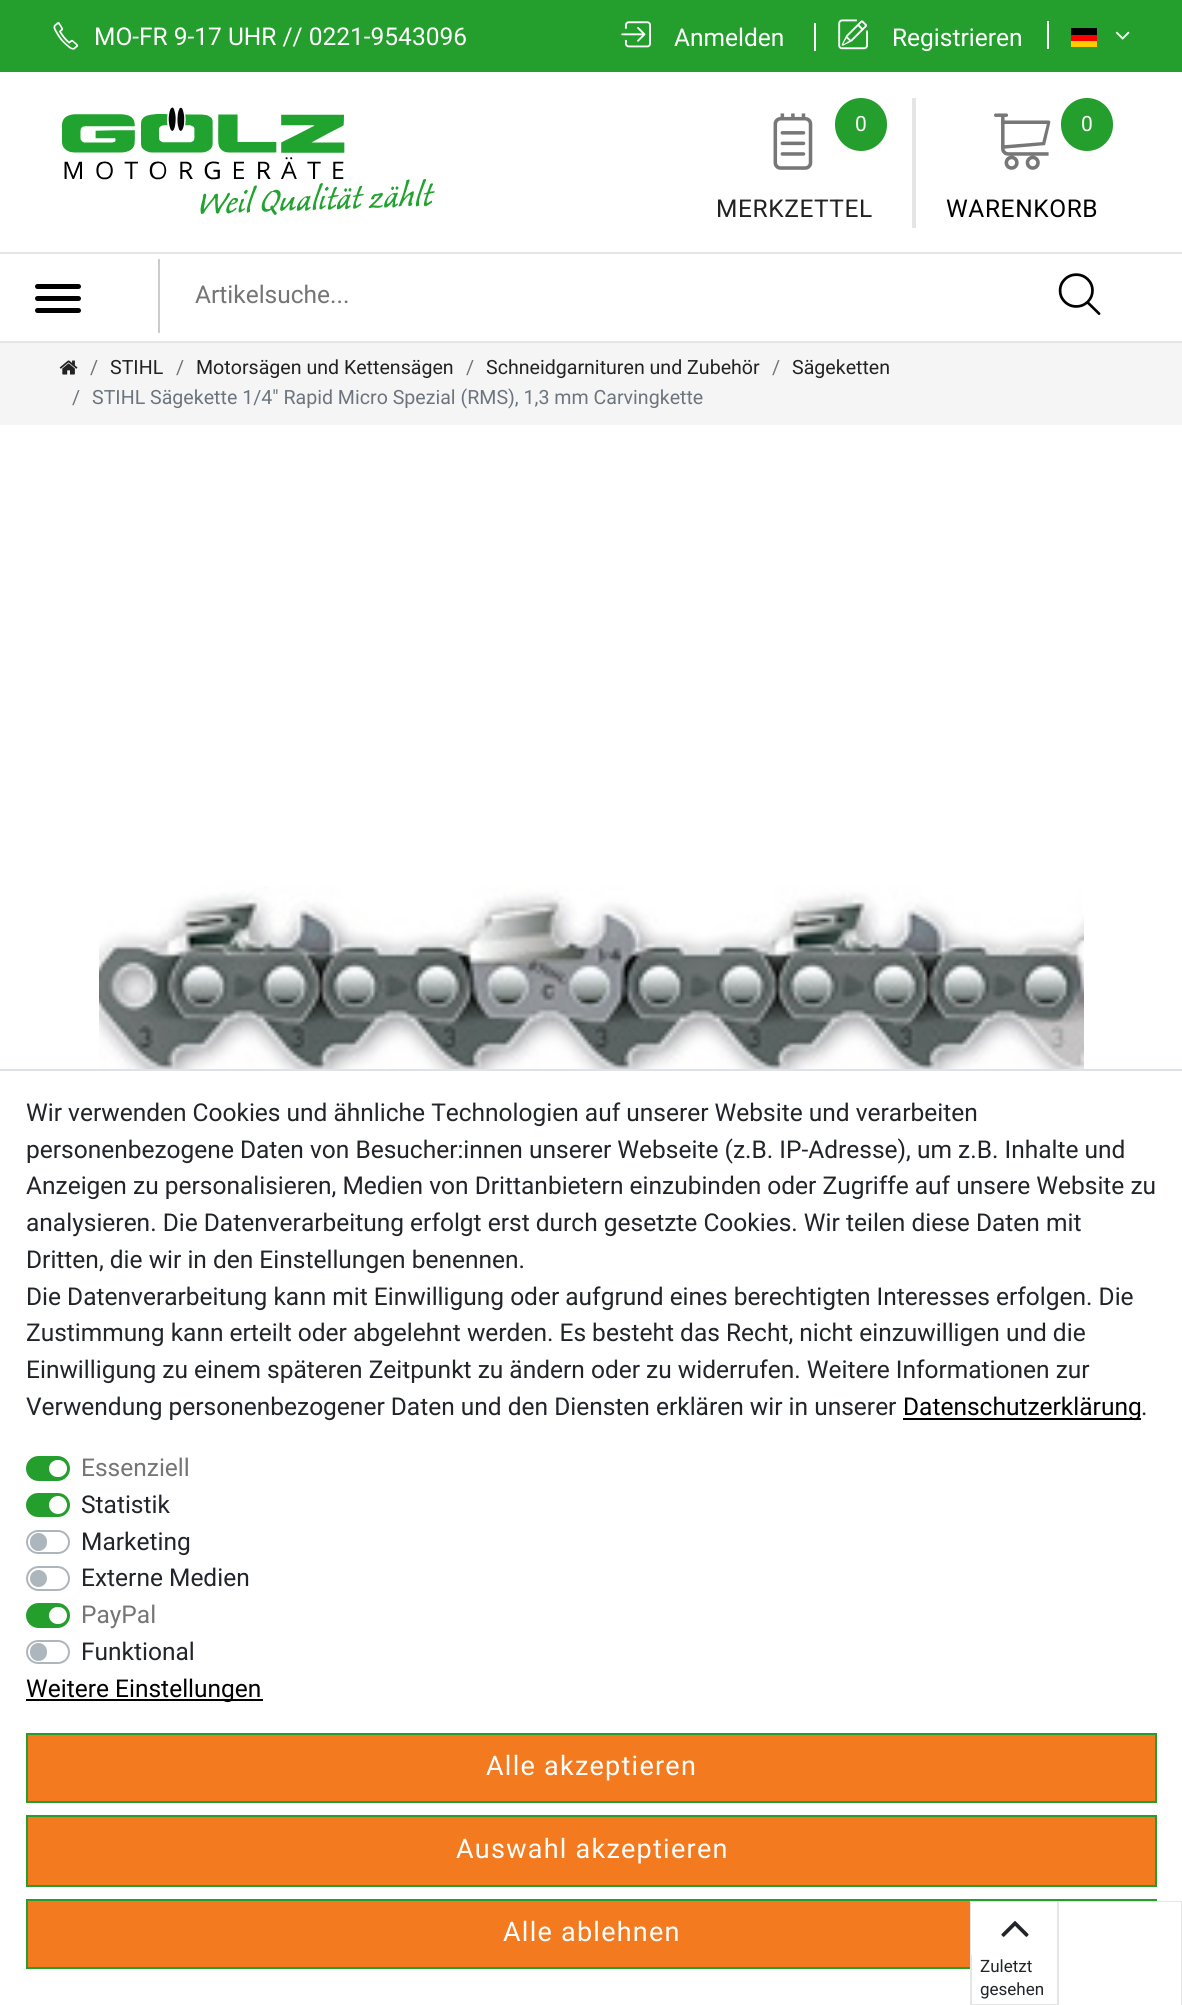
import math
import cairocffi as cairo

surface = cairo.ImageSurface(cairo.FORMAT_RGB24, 1182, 2005)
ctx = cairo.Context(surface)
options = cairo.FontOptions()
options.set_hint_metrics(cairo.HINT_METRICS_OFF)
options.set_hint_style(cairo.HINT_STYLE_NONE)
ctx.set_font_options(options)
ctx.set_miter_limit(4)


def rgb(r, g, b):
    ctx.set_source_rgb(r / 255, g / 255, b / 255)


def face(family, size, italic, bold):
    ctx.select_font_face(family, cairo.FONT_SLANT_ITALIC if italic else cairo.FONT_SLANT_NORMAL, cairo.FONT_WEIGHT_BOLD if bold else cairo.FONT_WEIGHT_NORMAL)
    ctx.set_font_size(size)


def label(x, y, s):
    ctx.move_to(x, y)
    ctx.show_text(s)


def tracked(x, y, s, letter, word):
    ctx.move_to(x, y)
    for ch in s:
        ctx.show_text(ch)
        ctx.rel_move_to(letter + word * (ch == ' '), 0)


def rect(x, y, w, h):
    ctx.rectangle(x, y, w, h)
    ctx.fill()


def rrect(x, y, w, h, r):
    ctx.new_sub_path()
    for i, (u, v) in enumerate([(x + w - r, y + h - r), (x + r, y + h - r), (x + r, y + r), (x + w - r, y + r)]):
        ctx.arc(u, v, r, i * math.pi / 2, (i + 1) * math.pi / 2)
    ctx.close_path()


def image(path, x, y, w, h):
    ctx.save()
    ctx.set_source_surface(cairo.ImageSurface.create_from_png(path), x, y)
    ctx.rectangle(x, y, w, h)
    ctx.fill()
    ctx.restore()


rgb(255, 255, 255)
ctx.paint()
rgb(36, 158, 44)
rect(0, 0, 1182, 72)
image('image0.png', 53, 22, 26, 28)
face('Roboto', 24.5, 0, 0)
rgb(255, 255, 255)
label(94, 45, 'MO-FR 9-17 UHR // 0221-9543096')
image('image1.png', 621, 21, 30, 27)
label(674, 46, 'Anmelden')
rect(814, 23, 2, 28)
image('image2.png', 838, 19, 30, 31)
label(892, 46, 'Registrieren')
rect(1047, 21, 2, 28)
rgb(255, 204, 0)
rect(1071, 41, 26, 6)
rgb(0, 0, 0)
rect(1071, 28, 26, 7)
rgb(255, 0, 0)
rect(1071, 35, 26, 6)
image('image3.png', 1115, 31, 15, 9)
rgb(229, 229, 229)
rect(0, 252, 1182, 2)
image('image4.png', 62, 107, 373, 108)
image('image5.png', 773, 113, 40, 57)
rgb(36, 158, 44)
rrect(835, 98, 52, 53, 26)
ctx.fill()
face('Roboto', 21, 0, 0)
rgb(255, 255, 255)
tracked(855, 131, '0', 0.6, 0)
face('Roboto', 24.5, 0, 0)
rgb(34, 34, 34)
tracked(716, 217, 'MERKZETTEL', 0.6, 0)
rgb(229, 229, 229)
rect(912, 98, 4, 130)
image('image6.png', 994, 113, 57, 57)
rgb(36, 158, 44)
rrect(1061, 98, 52, 53, 26)
ctx.fill()
face('Roboto', 21, 0, 0)
rgb(255, 255, 255)
tracked(1081, 131, '0', 0.6, 0)
face('Roboto', 24.5, 0, 0)
rgb(0, 0, 0)
tracked(946, 217, 'WARENKORB', 0.6, 0)
rgb(204, 204, 204)
rect(158, 259, 2, 74)
rgb(117, 117, 117)
label(195, 303, 'Artikelsuche...')
image('image7.png', 1058, 273, 43, 42)
rgb(229, 229, 229)
rect(0, 341, 1182, 2)
rgb(0, 0, 0)
rrect(35, 296, 46, 5, 2.5)
ctx.fill()
rrect(35, 284, 46, 5, 2.5)
ctx.fill()
rrect(35, 308, 46, 5, 2.5)
ctx.fill()
rgb(245, 245, 245)
rect(0, 343, 1182, 82)
image('image8.png', 59, 360, 19, 15)
face('Roboto', 19.6, 0, 0)
rgb(108, 117, 125)
label(90, 374, '/')
rgb(34, 34, 34)
label(110, 374, 'STIHL')
rgb(108, 117, 125)
label(176, 374, '/')
rgb(34, 34, 34)
label(196, 374, 'Motorsägen und Kettensägen')
rgb(108, 117, 125)
label(466, 374, '/')
rgb(34, 34, 34)
label(486, 374, 'Schneidgarnituren und Zubehör')
rgb(108, 117, 125)
label(772, 374, '/')
rgb(34, 34, 34)
label(792, 374, 'Sägeketten')
rgb(108, 117, 125)
label(72, 404, '/')
label(92, 404, 'STIHL Sägekette 1/4" Rapid Micro Spezial (RMS), 1,3 mm Carvingkette')
image('image9.png', 99, 886, 985, 183)
rgb(222, 226, 230)
rect(0, 1069, 1182, 2)
face('Roboto', 24.5, 0, 0)
rgb(33, 37, 41)
label(26, 1121, 'Wir verwenden Cookies und ähnliche Technologien auf unserer Website und verarbeiten')
label(26, 1158, 'personenbezogene Daten von Besucher:innen unserer Webseite (z.B. IP-Adresse), um z.B. Inhalte und')
label(26, 1194, 'Anzeigen zu personalisieren, Medien von Drittanbietern einzubinden oder Zugriffe auf unsere Website zu')
label(26, 1231, 'analysieren. Die Datenverarbeitung erfolgt erst durch gesetzte Cookies. Wir teilen diese Daten mit')
label(26, 1268, 'Dritten, die wir in den Einstellungen benennen.')
label(26, 1305, 'Die Datenverarbeitung kann mit Einwilligung oder aufgrund eines berechtigten Interesses erfolgen. Die')
label(26, 1341, 'Zustimmung kann erteilt oder abgelehnt werden. Es besteht das Recht, nicht einzuwilligen und die')
label(26, 1378, 'Einwilligung zu einem späteren Zeitpunkt zu ändern oder zu widerrufen. Weitere Informationen zur')
label(26, 1415, 'Verwendung personenbezogener Daten und den Diensten erklären wir in unserer')
rgb(0, 0, 0)
rect(903, 1418, 238, 2)
label(903, 1415, 'Datenschutzerklärung')
rgb(33, 37, 41)
label(1141, 1415, '.')
rgb(36, 158, 44)
rrect(27, 1457, 42, 23, 11.5)
ctx.fill_preserve()
ctx.stroke()
rgb(117, 117, 117)
label(81, 1476, 'Essenziell')
rgb(255, 255, 255)
rrect(49, 1460, 18, 17, 8.5)
ctx.fill()
rgb(36, 158, 44)
rrect(27, 1494, 42, 22, 11)
ctx.fill_preserve()
ctx.stroke()
rgb(33, 37, 41)
label(81, 1513, 'Statistik')
rgb(255, 255, 255)
ctx.new_path()
ctx.arc(58, 1505, 9, 0, 2 * math.pi)
ctx.fill()
rrect(27, 1531, 42, 22, 11)
rgb(173, 181, 189)
ctx.stroke()
rgb(33, 37, 41)
label(81, 1550, 'Marketing')
rgb(173, 181, 189)
rrect(30, 1533, 17, 18, 8.5)
ctx.fill()
rrect(27, 1567, 42, 23, 11.5)
ctx.stroke()
rgb(33, 37, 41)
label(81, 1586, 'Externe Medien')
rgb(173, 181, 189)
ctx.new_path()
ctx.arc(38.5, 1578.5, 8.5, 0, 2 * math.pi)
ctx.fill()
rgb(36, 158, 44)
rrect(27, 1604, 42, 23, 11.5)
ctx.fill_preserve()
ctx.stroke()
rgb(117, 117, 117)
label(81, 1623, 'PayPal')
rgb(255, 255, 255)
rrect(49, 1607, 18, 17, 8.5)
ctx.fill()
rrect(27, 1641, 42, 22, 11)
rgb(173, 181, 189)
ctx.stroke()
rgb(33, 37, 41)
label(81, 1660, 'Funktional')
rgb(173, 181, 189)
rrect(30, 1643, 17, 18, 8.5)
ctx.fill()
rgb(0, 0, 0)
rect(26, 1699, 237, 2)
label(26, 1697, 'Weitere Einstellungen')
rgb(243, 122, 31)
ctx.rectangle(27, 1734, 1129, 68)
ctx.fill_preserve()
rgb(36, 158, 44)
ctx.stroke()
face('Roboto', 27, 0, 0)
rgb(255, 255, 255)
tracked(486, 1775, 'Alle akzeptieren', 1.25, 0)
rgb(243, 122, 31)
ctx.rectangle(27, 1816, 1129, 70)
ctx.fill_preserve()
rgb(36, 158, 44)
ctx.stroke()
rgb(255, 255, 255)
tracked(456, 1858, 'Auswahl akzeptieren', 1.25, 0)
rgb(243, 122, 31)
rect(28, 1901, 942, 66)
ctx.rectangle(27, 1900, 1129, 68)
rgb(36, 158, 44)
ctx.stroke()
rgb(255, 255, 255)
tracked(503, 1941, 'Alle ablehnen', 1.25, 0)
rect(972, 1967, 85, 2)
ctx.rectangle(971, 1902, 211, 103)
rgb(229, 229, 229)
ctx.stroke()
rect(1057, 1902, 2, 102)
rgb(255, 255, 255)
rect(971, 1902, 86, 53)
image('image10.png', 1001, 1921, 28, 16)
face('Roboto', 17, 0, 0)
rgb(33, 37, 41)
label(980, 1972, 'Zuletzt')
label(980, 1995, 'gesehen')
rgb(255, 255, 255)
rect(1059, 1902, 122, 103)
surface.write_to_png('render.png')
